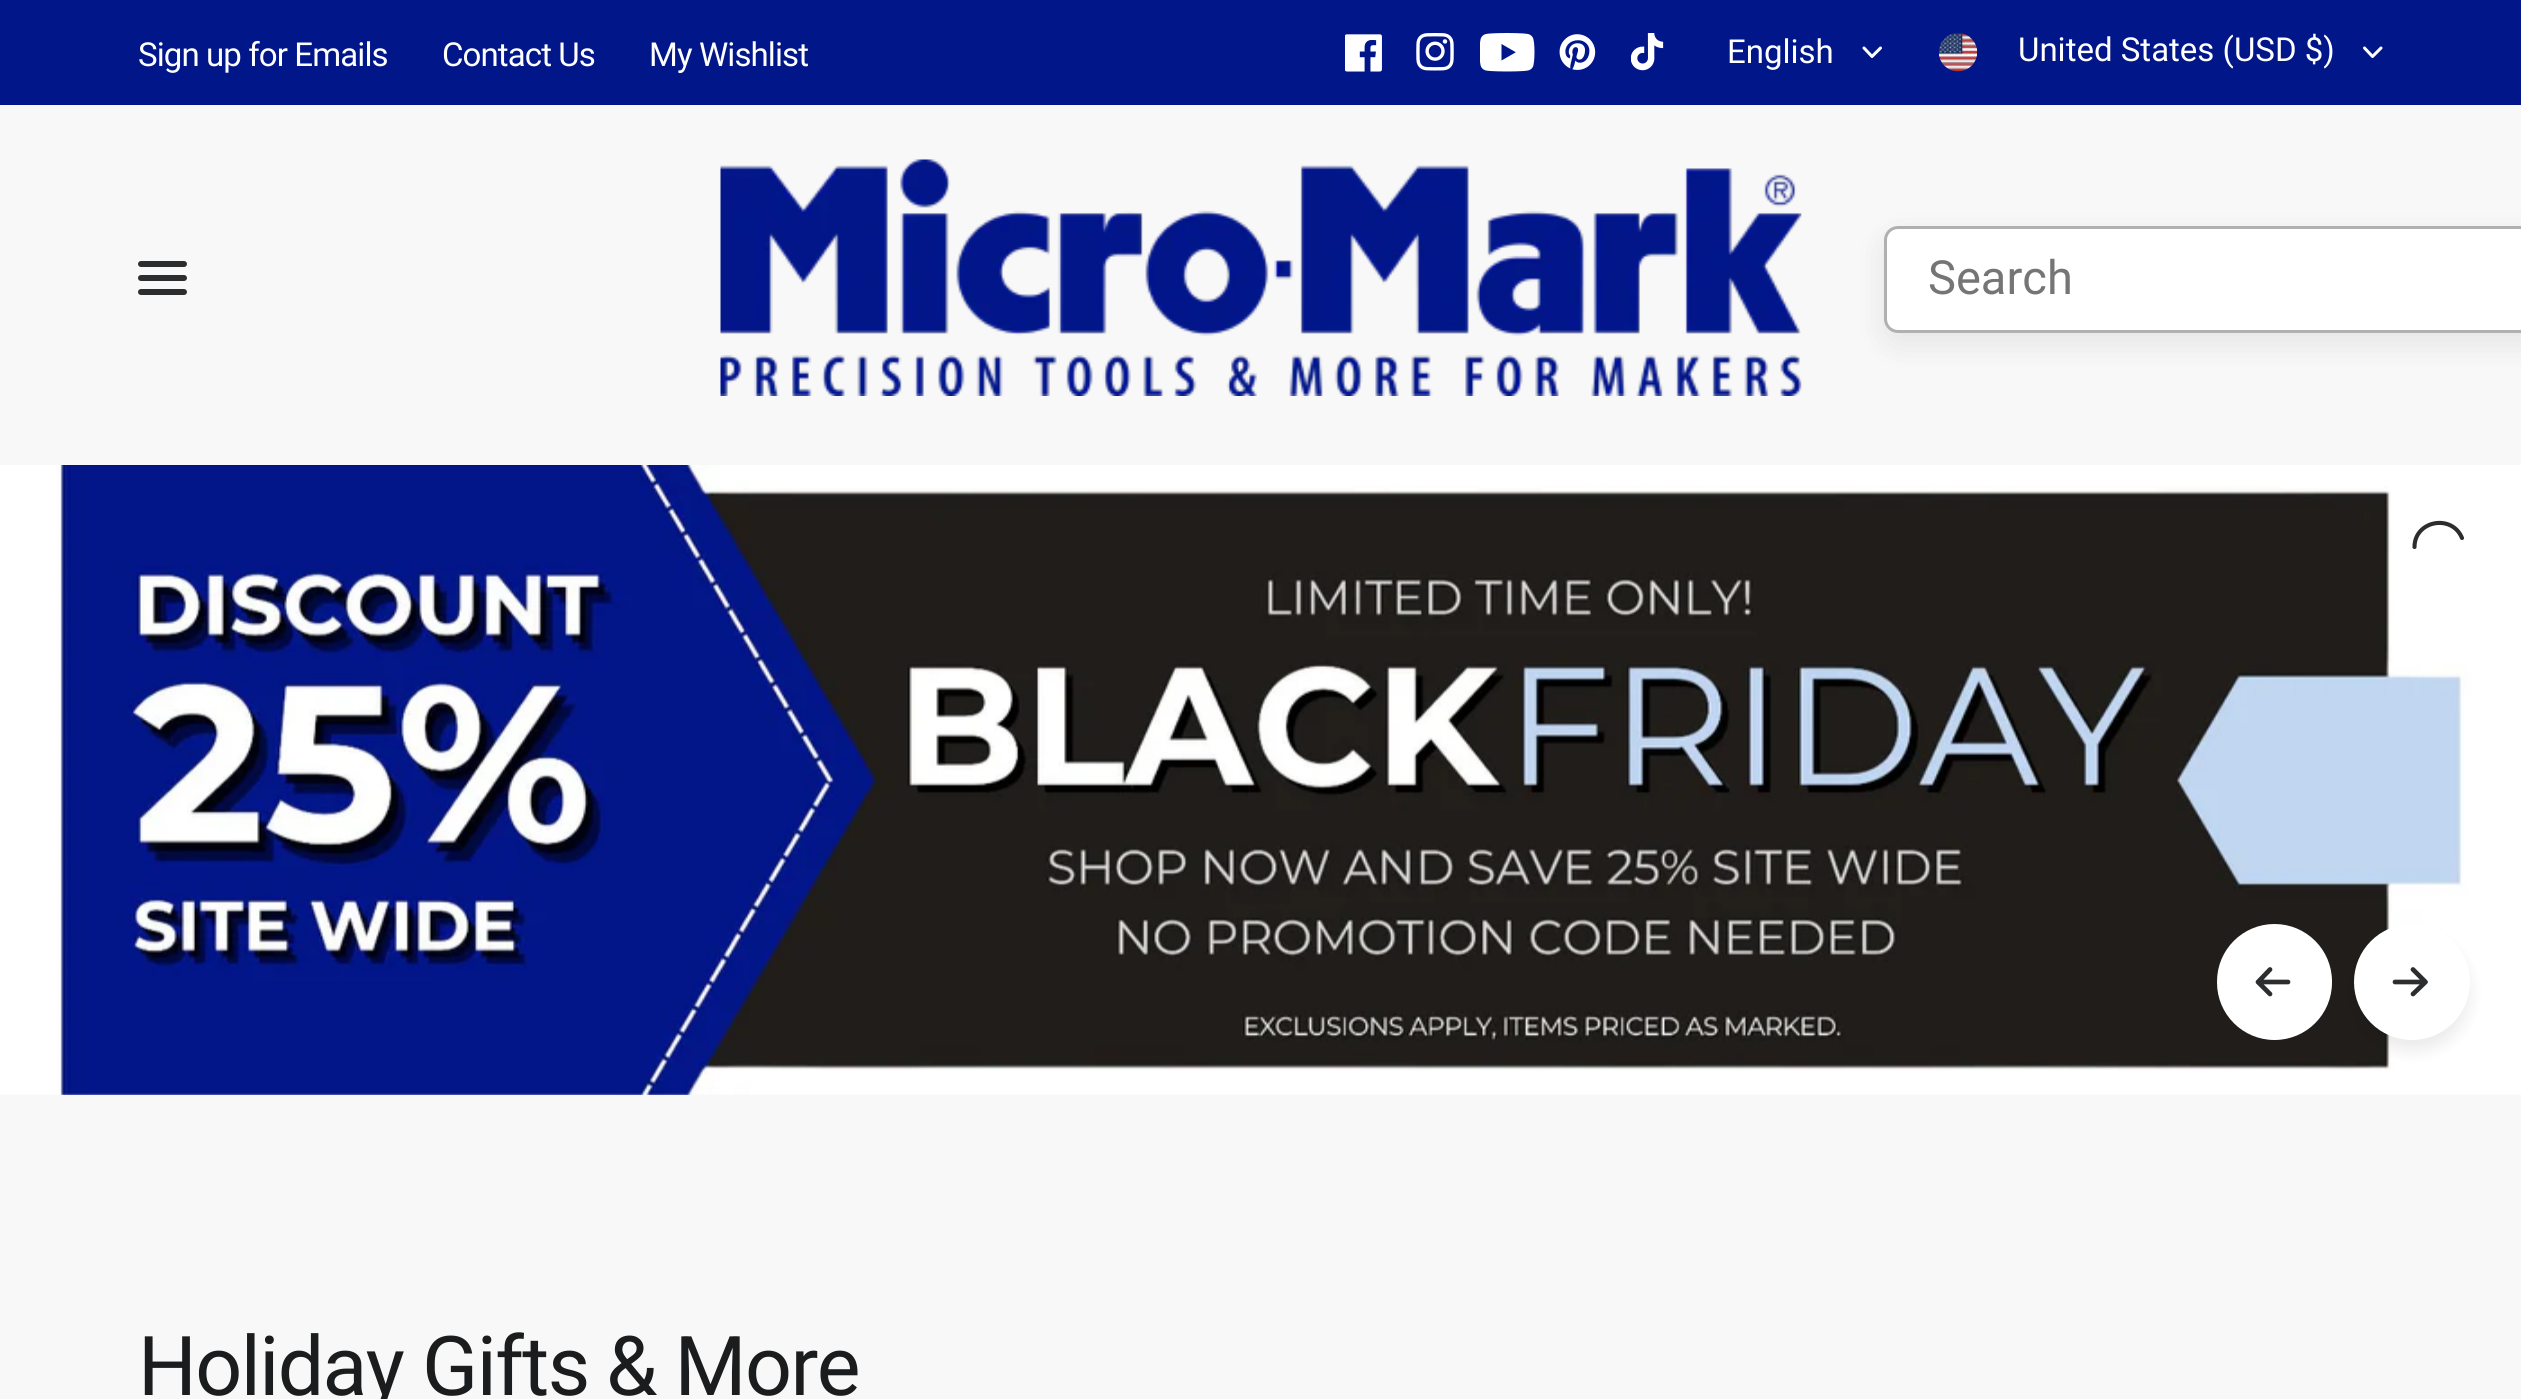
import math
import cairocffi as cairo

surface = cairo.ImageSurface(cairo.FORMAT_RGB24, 2521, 1399)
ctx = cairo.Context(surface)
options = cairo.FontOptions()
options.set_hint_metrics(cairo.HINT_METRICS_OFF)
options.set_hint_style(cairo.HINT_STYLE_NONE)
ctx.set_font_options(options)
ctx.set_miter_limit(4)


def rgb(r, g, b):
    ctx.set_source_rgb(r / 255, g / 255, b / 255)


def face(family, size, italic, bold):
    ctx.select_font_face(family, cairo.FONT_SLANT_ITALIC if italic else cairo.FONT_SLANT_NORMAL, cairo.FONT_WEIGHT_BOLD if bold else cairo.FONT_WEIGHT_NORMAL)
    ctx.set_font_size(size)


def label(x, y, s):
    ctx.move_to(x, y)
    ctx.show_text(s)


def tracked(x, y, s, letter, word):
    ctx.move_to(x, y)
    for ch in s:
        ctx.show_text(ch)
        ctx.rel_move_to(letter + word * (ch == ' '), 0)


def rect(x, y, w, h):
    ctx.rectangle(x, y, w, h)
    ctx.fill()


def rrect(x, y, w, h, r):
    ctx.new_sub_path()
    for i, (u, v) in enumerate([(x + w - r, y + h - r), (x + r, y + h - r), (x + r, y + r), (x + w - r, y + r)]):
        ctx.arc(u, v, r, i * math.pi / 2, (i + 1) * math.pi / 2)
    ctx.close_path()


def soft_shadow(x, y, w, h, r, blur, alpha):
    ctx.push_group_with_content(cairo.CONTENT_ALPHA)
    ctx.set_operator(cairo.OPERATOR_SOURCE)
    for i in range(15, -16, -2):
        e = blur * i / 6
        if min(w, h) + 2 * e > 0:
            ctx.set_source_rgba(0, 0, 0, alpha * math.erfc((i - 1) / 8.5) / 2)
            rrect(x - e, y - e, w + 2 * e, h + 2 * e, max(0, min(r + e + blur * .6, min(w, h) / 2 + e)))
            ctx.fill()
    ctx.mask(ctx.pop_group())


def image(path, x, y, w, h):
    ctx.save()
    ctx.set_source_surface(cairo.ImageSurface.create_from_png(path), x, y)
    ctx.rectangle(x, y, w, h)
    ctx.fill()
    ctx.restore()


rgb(1, 22, 137)
ctx.paint()
face('Roboto', 33, 0, 0)
rgb(255, 255, 255)
tracked(138, 66, 'Sign up for Emails', -0.9, 0)
tracked(442, 66, 'Contact Us', -0.9, 0)
tracked(649, 66, 'My Wishlist', -0.9, 0)
image('image0.png', 1345, 34, 37, 38)
image('image1.png', 1416, 33, 38, 38)
image('image2.png', 1480, 33, 55, 39)
image('image3.png', 1559, 34, 37, 36)
image('image4.png', 1631, 33, 33, 38)
label(1727, 63, 'English')
ctx.new_path()
ctx.move_to(1880.5, 48)
ctx.line_to(1872, 56.5)
ctx.line_to(1864, 48)
ctx.set_line_width(3)
ctx.set_line_cap(cairo.LINE_CAP_ROUND)
ctx.set_line_join(cairo.LINE_JOIN_ROUND)
ctx.stroke()
image('image5.png', 1939, 33, 39, 39)
label(2018, 61, 'United States (USD $)')
ctx.new_path()
ctx.move_to(2381, 48)
ctx.line_to(2372.5, 56.5)
ctx.line_to(2364.5, 48)
ctx.stroke()
rgb(248, 248, 248)
rect(0, 105, 2521, 1294)
rgb(44, 45, 46)
rrect(138, 261, 49, 6, 3)
ctx.fill()
rrect(138, 275, 49, 6, 3)
ctx.fill()
rrect(138, 289, 49, 6, 3)
ctx.fill()
image('image6.png', 720, 159, 1082, 237)
rgb(0, 0, 0)
soft_shadow(1884, 237, 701, 107, 14, 16.5, 0.08)
rgb(255, 255, 255)
rrect(1885.5, 227.5, 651, 104, 12.5)
ctx.fill_preserve()
rgb(176, 176, 176)
ctx.set_line_cap(cairo.LINE_CAP_BUTT)
ctx.set_line_join(cairo.LINE_JOIN_MITER)
ctx.stroke()
face('Roboto', 47, 0, 0)
rgb(117, 117, 117)
label(1928, 294, 'Search')
image('image7.png', 0, 465, 2521, 630)
ctx.new_path()
ctx.move_to(2414.5, 547)
ctx.curve_to(2414.5, 520.5, 2452, 513.5, 2462, 538)
rgb(44, 45, 46)
ctx.set_line_width(4.1)
ctx.set_line_cap(cairo.LINE_CAP_ROUND)
ctx.set_line_join(cairo.LINE_JOIN_ROUND)
ctx.stroke()
rgb(255, 255, 255)
rrect(2217, 924, 115, 116, 57.5)
ctx.fill()
ctx.new_path()
ctx.move_to(2288, 982)
ctx.line_to(2258, 982)
ctx.move_to(2270, 994)
ctx.line_to(2258, 982)
ctx.line_to(2270, 969.5)
rgb(44, 45, 46)
ctx.set_line_width(4.7)
ctx.stroke()
rgb(0, 0, 0)
soft_shadow(2354, 935, 116, 116, 58, 8, 0.08)
rgb(255, 255, 255)
ctx.arc(2412, 982, 58, 0, 2 * math.pi)
ctx.fill()
ctx.new_path()
ctx.move_to(2395, 982)
ctx.line_to(2425.5, 982)
ctx.move_to(2413, 969.5)
ctx.line_to(2425.5, 982)
ctx.line_to(2413, 994)
rgb(44, 45, 46)
ctx.stroke()
face('Roboto', 82.5, 0, 0)
rgb(26, 28, 29)
tracked(138, 1395, 'Holiday Gifts', -1.6, 0)
tracked(606, 1395, '& More', -1.6, 0)
surface.write_to_png('render.png')
